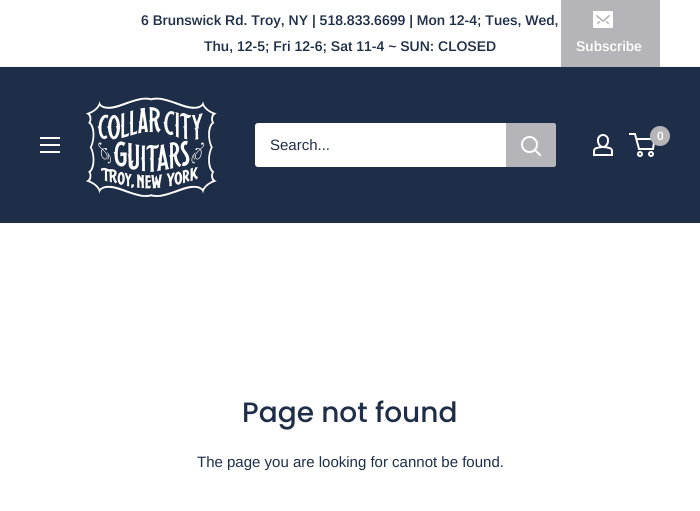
import math
import cairocffi as cairo

surface = cairo.ImageSurface(cairo.FORMAT_RGB24, 700, 511)
ctx = cairo.Context(surface)
options = cairo.FontOptions()
options.set_hint_metrics(cairo.HINT_METRICS_OFF)
options.set_hint_style(cairo.HINT_STYLE_NONE)
ctx.set_font_options(options)
ctx.set_miter_limit(4)


def rgb(r, g, b):
    ctx.set_source_rgb(r / 255, g / 255, b / 255)


def face(family, size, italic, bold):
    ctx.select_font_face(family, cairo.FONT_SLANT_ITALIC if italic else cairo.FONT_SLANT_NORMAL, cairo.FONT_WEIGHT_BOLD if bold else cairo.FONT_WEIGHT_NORMAL)
    ctx.set_font_size(size)


def label(x, y, s):
    ctx.move_to(x, y)
    ctx.show_text(s)


def rect(x, y, w, h):
    ctx.rectangle(x, y, w, h)
    ctx.fill()


def rrect(x, y, w, h, r):
    ctx.new_sub_path()
    for i, (u, v) in enumerate([(x + w - r, y + h - r), (x + r, y + h - r), (x + r, y + r), (x + w - r, y + r)]):
        ctx.arc(u, v, r, i * math.pi / 2, (i + 1) * math.pi / 2)
    ctx.close_path()


def image(path, x, y, w, h):
    ctx.save()
    ctx.set_source_surface(cairo.ImageSurface.create_from_png(path), x, y)
    ctx.rectangle(x, y, w, h)
    ctx.fill()
    ctx.restore()


rgb(255, 255, 255)
ctx.paint()
rgb(248, 246, 245)
rect(0, 66, 700, 1)
face('Arimo SemiBold', 14, 0, 0)
rgb(30, 46, 72)
label(141, 25, '6 Brunswick Rd. Troy, NY | 518.833.6699 | Mon 12-4; Tues, Wed,')
label(204, 51, 'Thu, 12-5; Fri 12-6; Sat 11-4 ~ SUN: CLOSED')
rgb(181, 181, 185)
rect(561, 0, 99, 67)
image('image0.png', 593, 11, 20, 17)
rgb(255, 255, 255)
label(576, 51, 'Subscribe')
rgb(30, 46, 72)
rect(0, 67, 700, 156)
image('image1.png', 85, 97, 133, 101)
image('image2.png', 593, 134, 20, 22)
ctx.arc(640, 154, 2, 0, 2 * math.pi)
rgb(255, 255, 255)
ctx.stroke()
ctx.arc(651, 154, 2, 0, 2 * math.pi)
ctx.stroke()
ctx.new_path()
ctx.move_to(636.5, 139)
ctx.line_to(654.5, 139)
ctx.line_to(653, 149)
ctx.line_to(639, 149)
ctx.line_to(635, 134)
ctx.line_to(629, 134)
ctx.stroke()
rgb(181, 181, 185)
ctx.arc(660, 136, 10, 0, 2 * math.pi)
ctx.fill()
face('Arimo SemiBold', 12, 0, 0)
rgb(255, 255, 255)
label(657, 140, '0')
image('image3.png', 40, 137, 20, 16)
rrect(255, 123, 301, 44, 3)
ctx.fill()
face('Arimo', 15, 0, 0)
rgb(30, 46, 72)
label(270, 150, 'Search...')
rgb(181, 181, 185)
ctx.new_path()
ctx.move_to(506, 123)
ctx.line_to(553, 123)
ctx.curve_to(554.5, 123, 556, 124.5, 556, 126)
ctx.line_to(556, 164)
ctx.curve_to(556, 165.5, 554.5, 167, 553, 167)
ctx.line_to(506, 167)
ctx.close_path()
ctx.fill()
ctx.new_path()
ctx.move_to(540, 155)
ctx.line_to(535, 150)
rgb(255, 255, 255)
ctx.set_line_cap(cairo.LINE_CAP_SQUARE)
ctx.stroke()
ctx.arc(529.5, 144.5, 7.5, 0, 2 * math.pi)
ctx.set_line_cap(cairo.LINE_CAP_BUTT)
ctx.stroke()
face('Poppins Medium', 28, 0, 0)
rgb(30, 46, 72)
label(242, 422, 'Page not found')
face('Arimo', 15, 0, 0)
label(197, 467, 'The page you are looking for cannot be found.')
surface.write_to_png('render.png')
